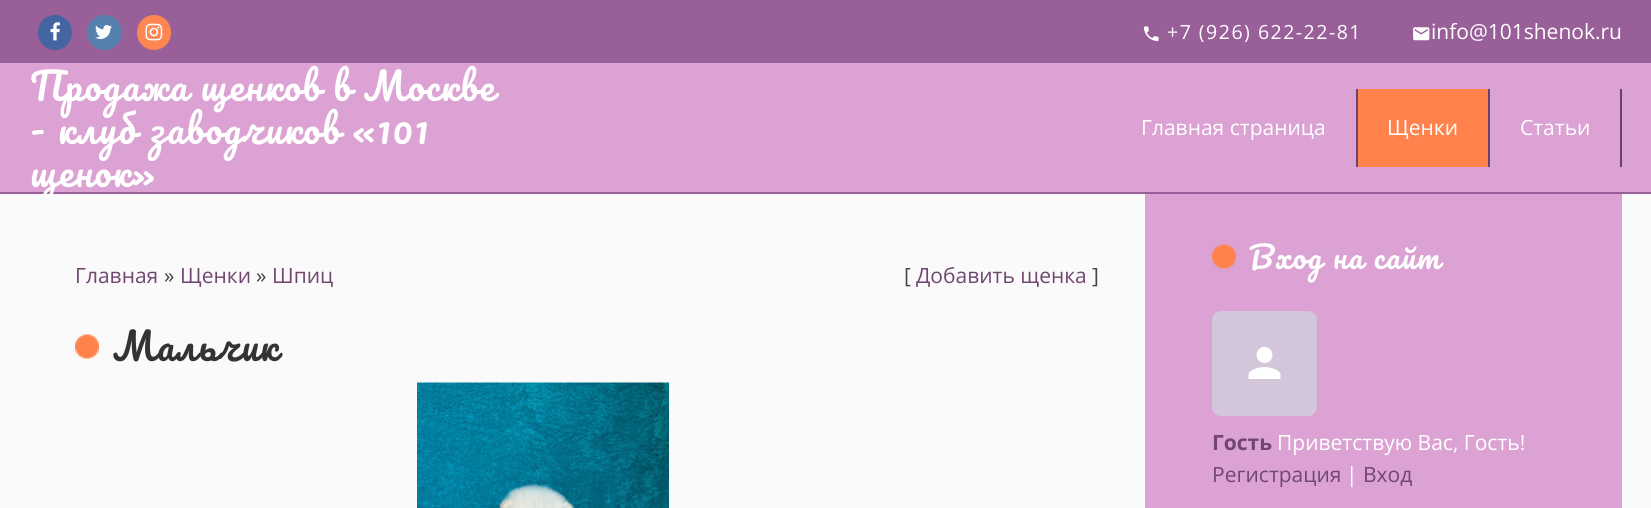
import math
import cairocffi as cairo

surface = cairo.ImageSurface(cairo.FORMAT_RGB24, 1651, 508)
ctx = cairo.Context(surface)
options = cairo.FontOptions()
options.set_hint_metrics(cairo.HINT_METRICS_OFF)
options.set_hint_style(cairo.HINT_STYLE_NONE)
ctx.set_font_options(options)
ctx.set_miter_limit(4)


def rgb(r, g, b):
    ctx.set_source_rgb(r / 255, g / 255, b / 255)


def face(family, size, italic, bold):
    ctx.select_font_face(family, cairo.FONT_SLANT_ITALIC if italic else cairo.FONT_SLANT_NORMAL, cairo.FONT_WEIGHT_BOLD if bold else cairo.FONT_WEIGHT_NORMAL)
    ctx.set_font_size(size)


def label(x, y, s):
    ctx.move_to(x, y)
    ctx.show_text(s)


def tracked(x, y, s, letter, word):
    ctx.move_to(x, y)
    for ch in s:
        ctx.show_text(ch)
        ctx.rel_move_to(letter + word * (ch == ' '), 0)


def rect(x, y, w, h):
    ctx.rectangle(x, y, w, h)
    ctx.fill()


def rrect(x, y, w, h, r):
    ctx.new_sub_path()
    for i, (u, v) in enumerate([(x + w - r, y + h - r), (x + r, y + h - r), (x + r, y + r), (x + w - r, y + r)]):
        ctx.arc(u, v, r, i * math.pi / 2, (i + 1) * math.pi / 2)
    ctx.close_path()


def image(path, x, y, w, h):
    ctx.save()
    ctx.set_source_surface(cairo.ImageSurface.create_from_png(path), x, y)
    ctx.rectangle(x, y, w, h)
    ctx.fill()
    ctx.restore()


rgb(250, 250, 250)
ctx.paint()
rgb(219, 162, 211)
rect(0, 63, 1651, 129)
rgb(152, 95, 152)
rect(0, 192, 1651, 2)
rect(0, 0, 1651, 63)
rgb(68, 100, 162)
rrect(38, 15, 34, 35, 17)
ctx.fill()
image('image0.png', 50, 22, 10, 19)
rgb(86, 128, 173)
ctx.arc(104.5, 32.5, 17.5, 0, 2 * math.pi)
ctx.fill()
image('image1.png', 95, 25, 17, 14)
rgb(254, 134, 83)
rrect(137, 15, 34, 35, 17)
ctx.fill()
image('image2.png', 145, 23, 18, 18)
image('image3.png', 1143, 26, 16, 16)
face('Open Sans', 19.5, 0, 0)
rgb(255, 255, 255)
tracked(1167, 39, '+7 (926) 622-22-81', 1.5, 0)
image('image4.png', 1413, 27, 17, 14)
face('Open Sans', 21, 0, 0)
label(1431, 39, 'info@101shenok.ru')
face('Pacifico', 37.5, 0, 0)
tracked(30, 101, 'Продажа щенков в Москве', 1.5, 0)
tracked(30, 144, '- клуб заводчиков «101', 1.5, 0)
tracked(30, 187, 'щенок»', 1.5, 0)
rgb(106, 67, 106)
rect(1356, 89, 2, 78)
face('Open Sans', 21, 0, 0)
rgb(255, 255, 255)
label(1141, 135, 'Главная страница')
rgb(106, 67, 106)
rect(1488, 89, 2, 78)
rgb(255, 130, 76)
rect(1358, 89, 130, 78)
rgb(255, 255, 255)
label(1387, 135, 'Щенки')
rgb(106, 67, 106)
rect(1620, 89, 2, 78)
rgb(255, 255, 255)
label(1520, 135, 'Статьи')
rgb(113, 71, 113)
label(75, 283, 'Главная')
rgb(68, 68, 68)
label(164, 283, '»')
rgb(113, 71, 113)
label(180, 283, 'Щенки')
rgb(68, 68, 68)
label(256, 283, '»')
rgb(113, 71, 113)
label(272, 283, 'Шпиц')
rgb(68, 68, 68)
label(904, 283, '[')
rgb(113, 71, 113)
label(916, 283, 'Добавить щенка')
rgb(68, 68, 68)
label(1092, 283, ']')
image('image5.png', 75, 334, 24, 25)
face('Pacifico', 37.5, 0, 0)
rgb(51, 51, 51)
tracked(113, 361, 'Мальчик', 1.5, 0)
image('image6.png', 417, 382, 252, 126)
rgb(219, 162, 211)
rect(1145, 194, 477, 314)
image('image7.png', 1212, 244, 24, 25)
face('Pacifico', 30, 0, 0)
rgb(255, 255, 255)
tracked(1249, 269, 'Вход на сайт', 1.5, 0)
rgb(211, 198, 218)
rrect(1212, 311, 105, 105, 9)
ctx.fill()
image('image8.png', 1248, 347, 33, 32)
face('Open Sans', 21, 0, 1)
rgb(113, 71, 113)
label(1212, 450, 'Гость')
face('Open Sans', 21, 0, 0)
rgb(255, 255, 255)
label(1277, 450, 'Приветствую Вас, Гость!')
rgb(113, 71, 113)
label(1212, 482, 'Регистрация')
rgb(255, 255, 255)
label(1346, 482, '|')
rgb(113, 71, 113)
label(1363, 482, 'Вход')
surface.write_to_png('render.png')
